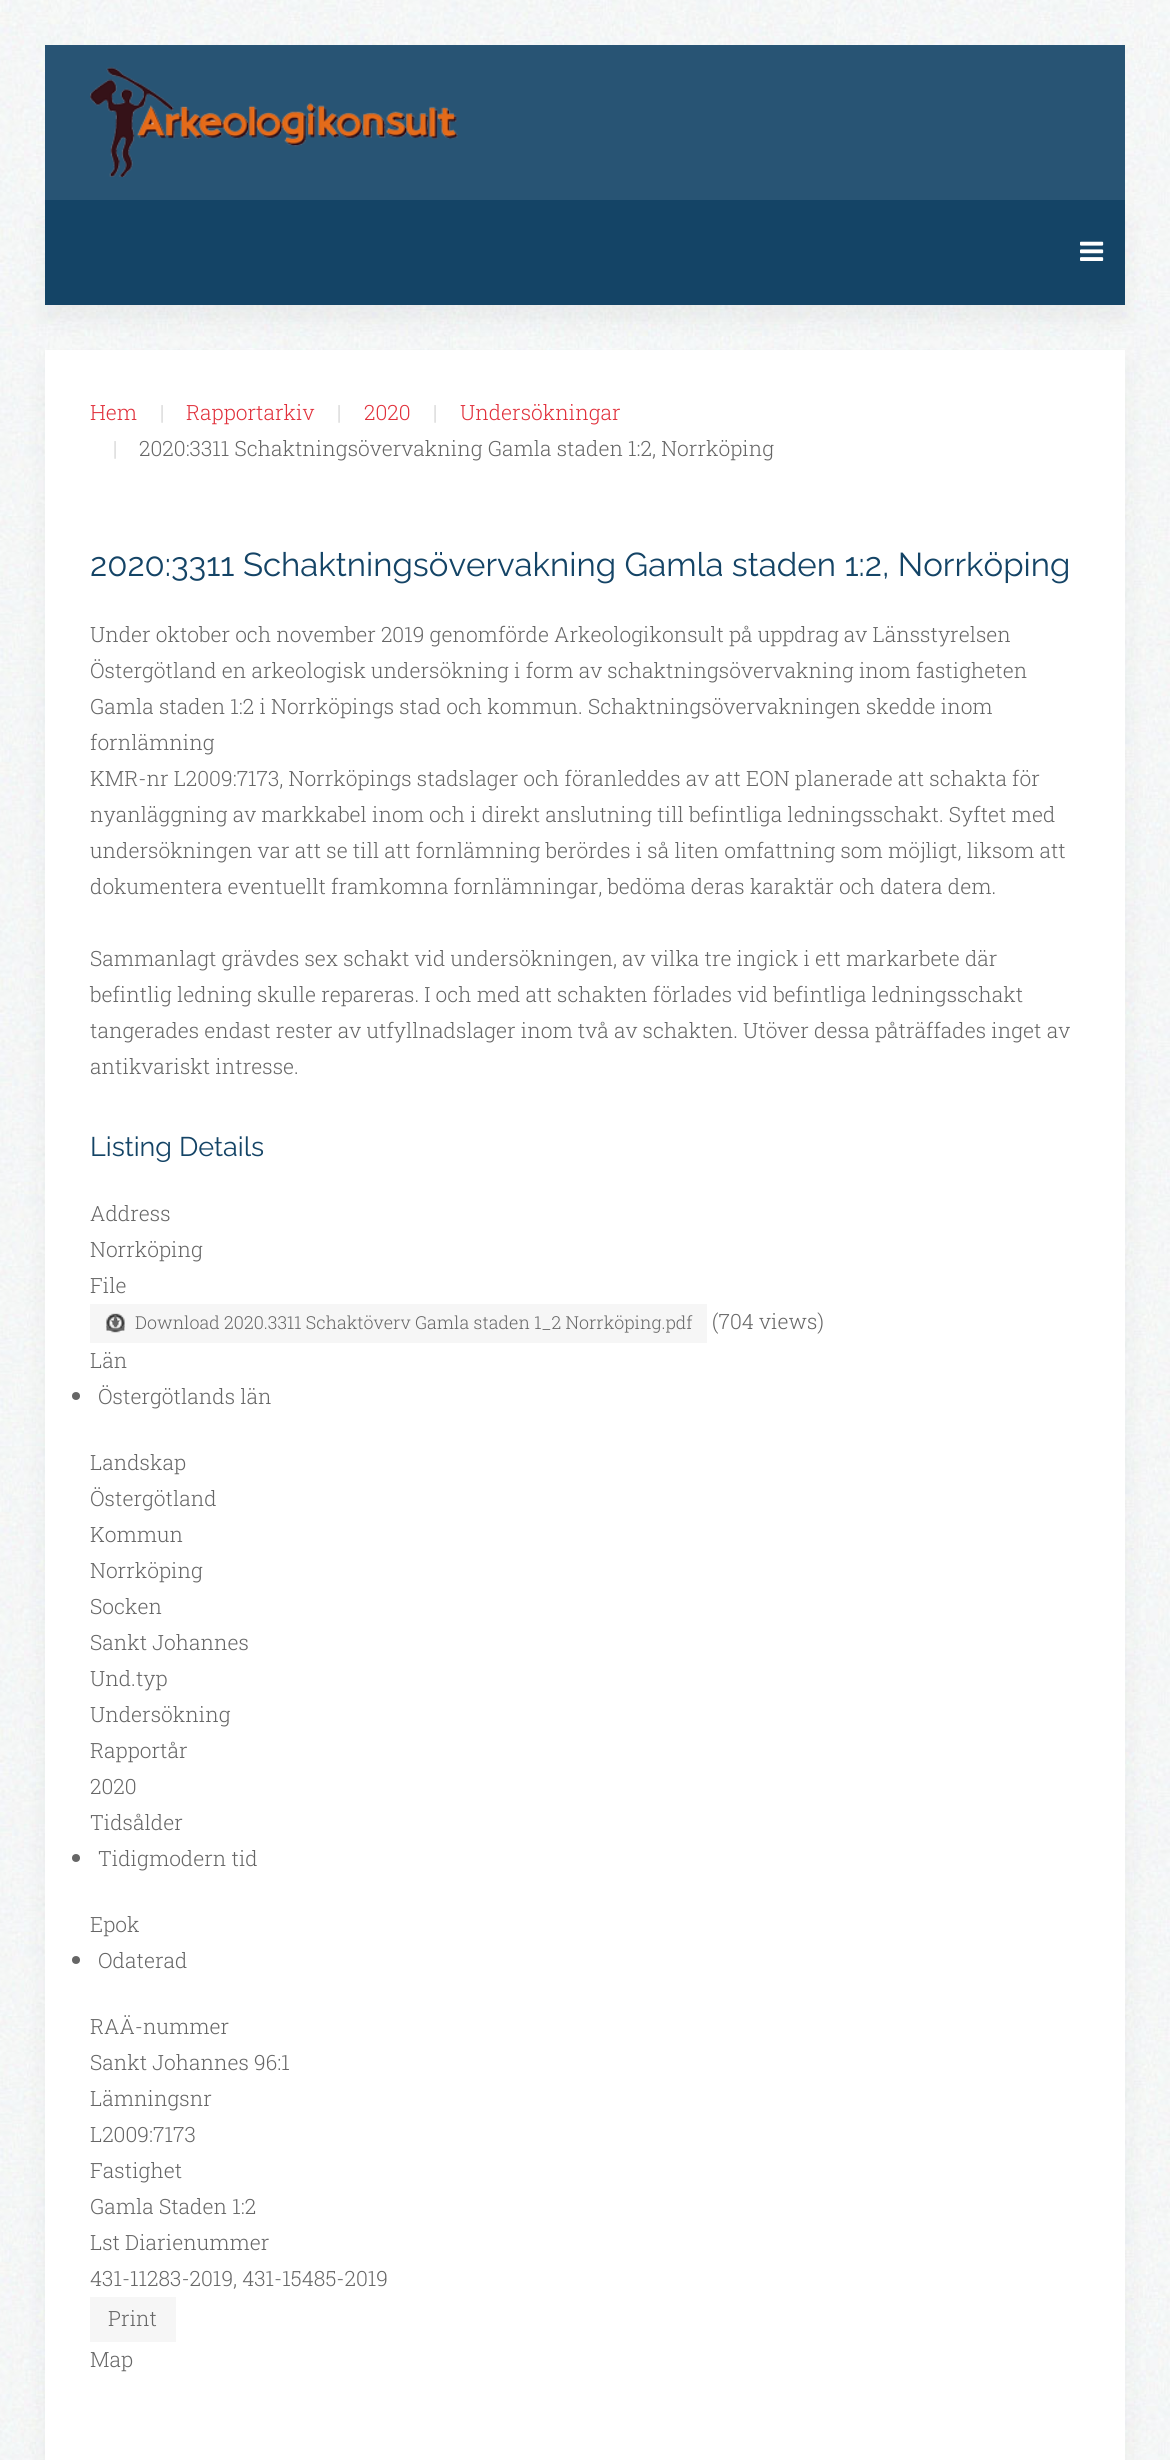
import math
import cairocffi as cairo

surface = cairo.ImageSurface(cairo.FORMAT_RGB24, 1170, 2460)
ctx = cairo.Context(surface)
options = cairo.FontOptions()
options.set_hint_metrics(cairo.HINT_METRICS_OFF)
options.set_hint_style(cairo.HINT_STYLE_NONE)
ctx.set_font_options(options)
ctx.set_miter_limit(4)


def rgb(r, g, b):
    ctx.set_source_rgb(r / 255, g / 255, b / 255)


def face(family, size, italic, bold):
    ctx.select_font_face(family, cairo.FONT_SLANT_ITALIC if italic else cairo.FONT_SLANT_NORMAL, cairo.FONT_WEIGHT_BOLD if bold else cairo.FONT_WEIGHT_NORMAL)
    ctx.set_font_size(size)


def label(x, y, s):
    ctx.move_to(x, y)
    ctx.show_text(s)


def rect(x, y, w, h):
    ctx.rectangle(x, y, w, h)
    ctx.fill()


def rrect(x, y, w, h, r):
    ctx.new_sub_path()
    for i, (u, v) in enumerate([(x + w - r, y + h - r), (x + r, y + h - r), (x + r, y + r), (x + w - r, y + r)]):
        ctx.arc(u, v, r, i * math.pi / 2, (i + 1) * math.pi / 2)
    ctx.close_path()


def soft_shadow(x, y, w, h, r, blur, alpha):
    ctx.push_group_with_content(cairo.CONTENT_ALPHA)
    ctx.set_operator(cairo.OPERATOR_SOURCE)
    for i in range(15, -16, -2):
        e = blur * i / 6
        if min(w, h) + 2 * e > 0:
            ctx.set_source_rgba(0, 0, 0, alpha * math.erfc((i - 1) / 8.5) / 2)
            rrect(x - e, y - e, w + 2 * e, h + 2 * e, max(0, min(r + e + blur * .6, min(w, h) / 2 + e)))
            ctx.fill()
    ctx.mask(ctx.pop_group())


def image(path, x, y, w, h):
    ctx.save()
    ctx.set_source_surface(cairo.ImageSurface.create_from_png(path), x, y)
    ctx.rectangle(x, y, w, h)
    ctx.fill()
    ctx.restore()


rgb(255, 255, 255)
ctx.paint()
image('image0.png', 0, 0, 1170, 2460)
rgb(40, 84, 116)
rect(45, 45, 1080, 155)
image('image1.png', 90, 67, 368, 110)
rgb(0, 0, 0)
soft_shadow(45, 215, 1080, 105, 0, 11, 0.05)
rgb(20, 68, 102)
rect(45, 200, 1080, 105)
image('image2.png', 1080, 241, 24, 20)
rgb(0, 0, 0)
soft_shadow(45, 365, 1080, 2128, 0, 11, 0.05)
rgb(255, 255, 255)
rect(45, 350, 1080, 2110)
face('Roboto Slab Light', 21, 0, 0)
rgb(225, 48, 59)
label(90, 420, 'Hem')
rgb(204, 204, 204)
label(160, 420, '|')
rgb(225, 48, 59)
label(186, 420, 'Rapportarkiv')
rgb(204, 204, 204)
label(337, 420, '|')
rgb(225, 48, 59)
label(364, 420, '2020')
rgb(204, 204, 204)
label(433, 420, '|')
rgb(225, 48, 59)
label(460, 420, 'Undersökningar')
rgb(204, 204, 204)
label(113, 456, '|')
rgb(102, 102, 102)
label(139, 456, '2020:3311 Schaktningsövervakning Gamla staden 1:2, Norrköping')
face('Raleway', 33, 0, 0)
rgb(20, 68, 102)
label(90, 576, '2020:3311 Schaktningsövervakning Gamla staden 1:2, Norrköping')
face('Roboto Slab Light', 21, 0, 0)
rgb(102, 102, 102)
label(90, 642, 'Under oktober och november 2019 genomförde Arkeologikonsult på uppdrag av Länsstyrelsen')
label(90, 678, 'Östergötland en arkeologisk undersökning i form av schaktningsövervakning inom fastigheten')
label(90, 714, 'Gamla staden 1:2 i Norrköpings stad och kommun. Schaktningsövervakningen skedde inom')
label(90, 750, 'fornlämning')
label(90, 786, 'KMR-nr L2009:7173, Norrköpings stadslager och föranleddes av att EON planerade att schakta för')
label(90, 822, 'nyanläggning av markkabel inom och i direkt anslutning till befintliga ledningsschakt. Syftet med')
label(90, 858, 'undersökningen var att se till att fornlämning berördes i så liten omfattning som möjligt, liksom att')
label(90, 894, 'dokumentera eventuellt framkomna fornlämningar, bedöma deras karaktär och datera dem.')
label(90, 966, 'Sammanlagt grävdes sex schakt vid undersökningen, av vilka tre ingick i ett markarbete där')
label(90, 1002, 'befintlig ledning skulle repareras. I och med att schakten förlades vid befintliga ledningsschakt')
label(90, 1038, 'tangerades endast rester av utfyllnadslager inom två av schakten. Utöver dessa påträffades inget av')
label(90, 1074, 'antikvariskt intresse.')
face('Raleway', 27, 0, 0)
rgb(20, 68, 102)
label(90, 1156, 'Listing Details')
face('Roboto Slab Light', 21, 0, 0)
rgb(102, 102, 102)
label(90, 1221, 'Address')
label(90, 1257, 'Norrköping')
label(90, 1293, 'File')
rgb(246, 246, 246)
rect(90, 1304, 617, 39)
image('image3.png', 106, 1313, 19, 20)
image('image4.png', 106, 1315, 19, 16)
face('Roboto Slab Light', 17.85, 0, 0)
rgb(102, 102, 102)
label(135, 1329, 'Download 2020.3311 Schaktöverv Gamla staden 1_2 Norrköping.pdf')
face('Roboto Slab Light', 21, 0, 0)
label(712, 1329, '(704 views)')
label(90, 1368, 'Län')
ctx.new_path()
ctx.arc(76, 1396, 4, 0, 2 * math.pi)
ctx.fill()
label(98, 1404, 'Östergötlands län')
label(90, 1470, 'Landskap')
label(90, 1506, 'Östergötland')
label(90, 1542, 'Kommun')
label(90, 1578, 'Norrköping')
label(90, 1614, 'Socken')
label(90, 1650, 'Sankt Johannes')
label(90, 1686, 'Und.typ')
label(90, 1722, 'Undersökning')
label(90, 1758, 'Rapportår')
label(90, 1794, '2020')
label(90, 1830, 'Tidsålder')
ctx.new_path()
ctx.arc(76, 1858, 4, 0, 2 * math.pi)
ctx.fill()
label(98, 1866, 'Tidigmodern tid')
label(90, 1932, 'Epok')
ctx.new_path()
ctx.arc(76, 1960, 4, 0, 2 * math.pi)
ctx.fill()
label(98, 1968, 'Odaterad')
label(90, 2034, 'RAÄ-nummer')
label(90, 2070, 'Sankt Johannes 96:1')
label(90, 2106, 'Lämningsnr')
label(90, 2142, 'L2009:7173')
label(90, 2178, 'Fastighet')
label(90, 2214, 'Gamla Staden 1:2')
label(90, 2250, 'Lst Diarienummer')
label(90, 2286, '431-11283-2019, 431-15485-2019')
rgb(246, 246, 246)
rect(90, 2297, 86, 45)
rgb(102, 102, 102)
label(108, 2326, 'Print')
label(90, 2367, 'Map')
surface.write_to_png('render.png')
